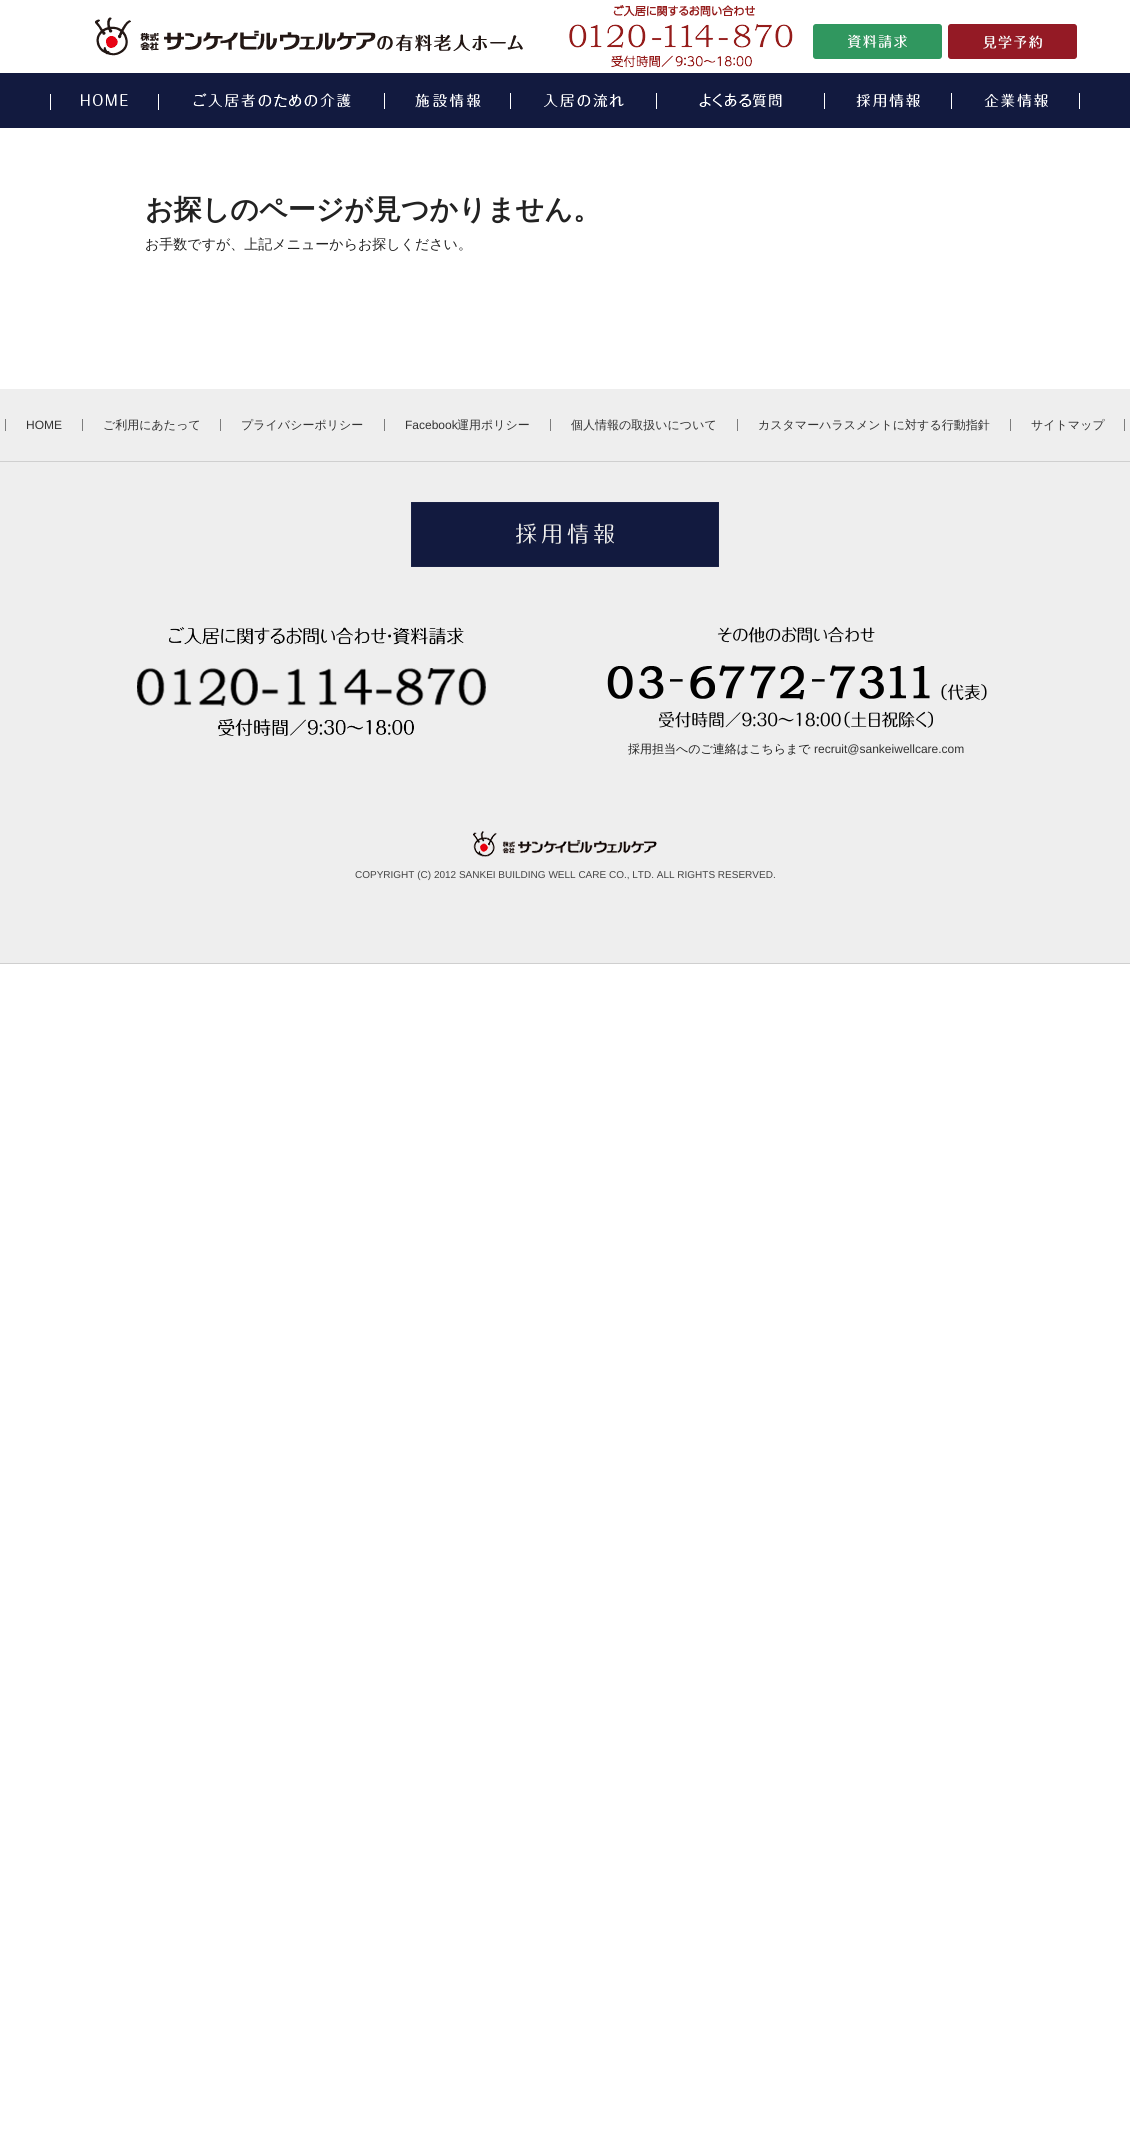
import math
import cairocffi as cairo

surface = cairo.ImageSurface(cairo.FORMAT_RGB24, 1130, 2154)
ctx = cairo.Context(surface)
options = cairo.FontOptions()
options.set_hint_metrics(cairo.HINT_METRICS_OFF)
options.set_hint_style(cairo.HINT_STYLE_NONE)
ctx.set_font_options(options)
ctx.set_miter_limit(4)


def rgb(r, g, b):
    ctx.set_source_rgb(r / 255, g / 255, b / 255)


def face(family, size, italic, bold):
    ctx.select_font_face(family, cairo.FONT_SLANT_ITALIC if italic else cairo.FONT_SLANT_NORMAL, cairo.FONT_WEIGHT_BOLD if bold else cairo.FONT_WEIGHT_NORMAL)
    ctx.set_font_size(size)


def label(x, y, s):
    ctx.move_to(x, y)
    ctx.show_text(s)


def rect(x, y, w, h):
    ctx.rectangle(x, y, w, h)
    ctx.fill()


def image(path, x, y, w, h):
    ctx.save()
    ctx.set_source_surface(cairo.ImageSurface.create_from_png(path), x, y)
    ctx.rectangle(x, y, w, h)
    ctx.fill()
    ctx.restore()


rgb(255, 255, 255)
ctx.paint()
image('image0.png', 95, 17, 428, 39)
image('image1.png', 569, 5, 224, 63)
image('image2.png', 813, 24, 129, 35)
image('image3.png', 948, 24, 129, 35)
rgb(18, 26, 63)
rect(0, 73, 1130, 55)
rgb(255, 255, 255)
rect(50, 94, 1, 16)
image('image4.png', 81, 94, 47, 12)
rect(158, 94, 1, 16)
image('image5.png', 193, 93, 158, 15)
rect(384, 93, 1, 16)
image('image6.png', 415, 93, 66, 15)
rect(510, 93, 1, 16)
image('image7.png', 544, 93, 80, 15)
rect(656, 93, 1, 16)
image('image8.png', 699, 93, 83, 15)
rect(824, 93, 1, 16)
image('image9.png', 856, 93, 64, 15)
rect(951, 93, 1, 16)
image('image10.png', 984, 93, 64, 15)
rect(1079, 93, 1, 16)
face('WenQuanYi Zen Hei', 28, 0, 1)
rgb(34, 34, 34)
label(145, 219, 'お探しのページが見つかりません。')
face('WenQuanYi Zen Hei Medium', 14, 0, 0)
label(145, 249, 'お手数ですが、上記メニューからお探しください。')
rgb(238, 238, 238)
rect(0, 389, 1130, 574)
rgb(207, 207, 207)
rect(0, 461, 1130, 1)
rgb(125, 125, 125)
rect(82, 419, 1, 12)
rect(5, 419, 1, 12)
face('Liberation Sans', 12, 0, 0)
rgb(50, 50, 50)
label(26, 429, 'HOME')
rgb(125, 125, 125)
rect(220, 419, 1, 12)
face('WenQuanYi Zen Hei Medium', 12, 0, 0)
rgb(50, 50, 50)
label(103, 429, 'ご利用にあたって')
rgb(125, 125, 125)
rect(384, 419, 1, 12)
rgb(50, 50, 50)
label(241, 429, 'プライバシーポリシー')
rgb(125, 125, 125)
rect(550, 419, 1, 12)
face('Liberation Sans', 12, 0, 0)
rgb(50, 50, 50)
label(405, 429, 'Facebook')
face('WenQuanYi Zen Hei Medium', 12, 0, 0)
label(457, 429, '運用ポリシー')
rgb(125, 125, 125)
rect(737, 419, 1, 12)
rgb(50, 50, 50)
label(571, 429, '個人情報の取扱いについて')
rgb(125, 125, 125)
rect(1010, 419, 1, 12)
rgb(50, 50, 50)
label(758, 429, 'カスタマーハラスメントに対する行動指針')
rgb(125, 125, 125)
rect(1124, 419, 1, 12)
rgb(50, 50, 50)
label(1031, 429, 'サイトマップ')
rgb(207, 207, 207)
rect(0, 963, 1130, 1)
image('image11.png', 411, 502, 308, 65)
image('image12.png', 137, 627, 349, 109)
image('image13.png', 607, 627, 380, 101)
rgb(34, 34, 34)
label(628, 753, '採用担当へのご連絡はこちらまで')
face('Liberation Sans', 12, 0, 0)
rgb(50, 50, 50)
label(814, 753, 'recruit@sankeiwellcare.com')
image('image14.png', 473, 831, 184, 26)
face('Liberation Sans', 10, 0, 0)
rgb(67, 67, 67)
label(355, 878, 'COPYRIGHT (C) 2012 SANKEI BUILDING WELL CARE CO., LTD. ALL RIGHTS RESERVED.')
surface.write_to_png('render.png')
